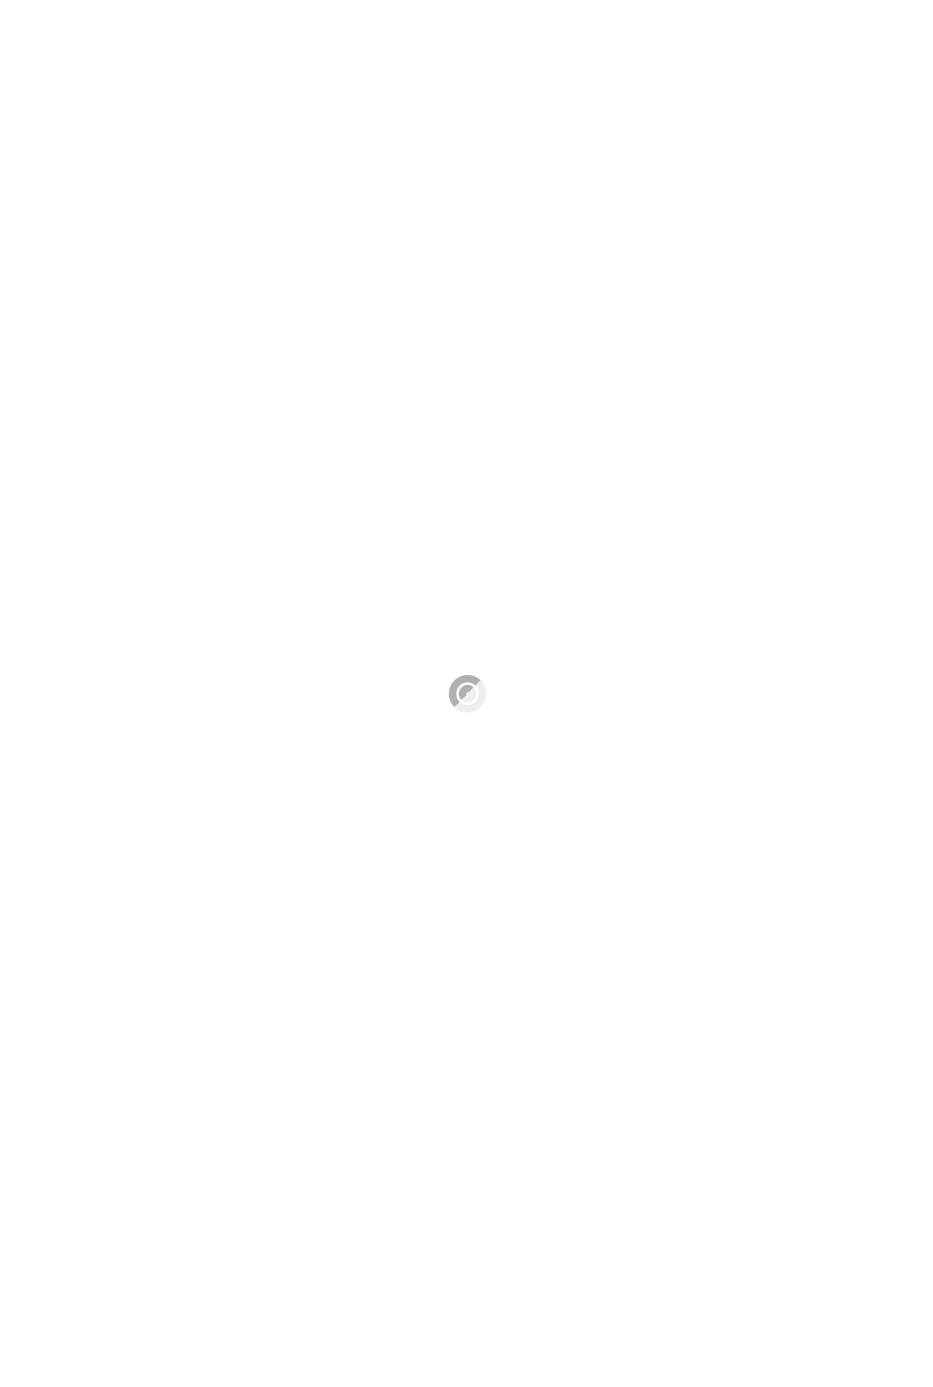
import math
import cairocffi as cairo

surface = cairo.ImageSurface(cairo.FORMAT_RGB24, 933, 1387)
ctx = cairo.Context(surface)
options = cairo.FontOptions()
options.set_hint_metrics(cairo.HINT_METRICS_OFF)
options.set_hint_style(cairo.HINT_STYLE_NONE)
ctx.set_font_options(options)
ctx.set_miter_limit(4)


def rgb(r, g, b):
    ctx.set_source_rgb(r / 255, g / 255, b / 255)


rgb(255, 255, 255)
ctx.paint()
ctx.new_path()
ctx.move_to(471, 690)
ctx.curve_to(475.5, 695, 468.5, 702, 464, 697.5)
rgb(239, 239, 239)
ctx.set_line_width(7.5)
ctx.stroke()
ctx.new_path()
ctx.move_to(464, 697.5)
ctx.curve_to(459.5, 692.5, 466.5, 685.5, 471, 690)
rgb(176, 176, 175)
ctx.stroke()
ctx.new_path()
ctx.move_to(478, 683)
ctx.curve_to(488.5, 693.5, 479, 711.5, 464.5, 708.5)
ctx.curve_to(461.5, 708, 459, 706.5, 457, 704.5)
rgb(239, 239, 239)
ctx.stroke()
ctx.new_path()
ctx.move_to(457, 704.5)
ctx.curve_to(446.5, 694, 456, 676, 470.5, 679)
ctx.curve_to(473.5, 679.5, 476, 681, 478, 683)
rgb(176, 176, 175)
ctx.stroke()
surface.write_to_png('render.png')
